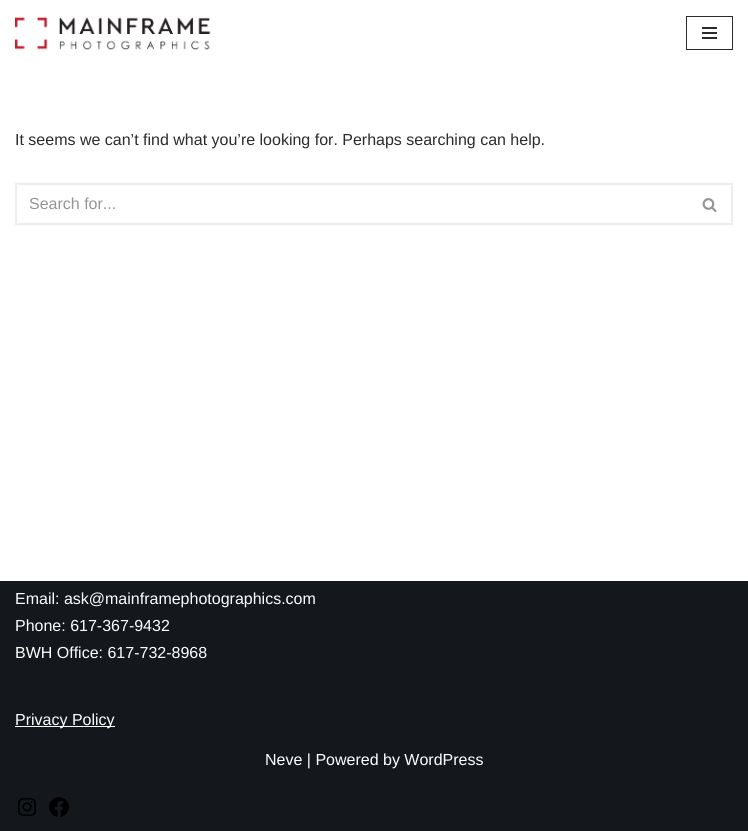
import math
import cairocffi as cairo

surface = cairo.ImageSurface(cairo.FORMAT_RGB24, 748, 831)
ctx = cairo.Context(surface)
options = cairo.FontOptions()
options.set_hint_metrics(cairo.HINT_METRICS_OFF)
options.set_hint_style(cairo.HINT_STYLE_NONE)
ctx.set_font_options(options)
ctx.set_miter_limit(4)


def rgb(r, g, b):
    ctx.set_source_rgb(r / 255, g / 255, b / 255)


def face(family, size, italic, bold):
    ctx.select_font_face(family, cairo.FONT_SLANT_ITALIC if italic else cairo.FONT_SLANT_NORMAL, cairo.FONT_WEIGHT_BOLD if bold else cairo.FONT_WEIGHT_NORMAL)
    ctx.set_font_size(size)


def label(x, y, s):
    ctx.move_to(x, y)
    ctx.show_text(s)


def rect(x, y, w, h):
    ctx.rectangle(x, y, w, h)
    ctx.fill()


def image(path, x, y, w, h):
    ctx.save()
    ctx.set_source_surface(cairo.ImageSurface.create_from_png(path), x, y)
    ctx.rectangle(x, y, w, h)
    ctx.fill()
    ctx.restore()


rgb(255, 255, 255)
ctx.paint()
image('image0.png', 15, 16, 196, 34)
ctx.rectangle(686.5, 16.5, 46, 33)
rgb(43, 43, 43)
ctx.set_line_width(1)
ctx.stroke()
rect(702, 27, 15, 2)
rect(702, 32, 15, 2)
rect(702, 37, 15, 2)
face('Liberation Sans', 16, 0, 0)
label(15, 145, 'It seems we can’t find what you’re looking for. Perhaps searching can help.')
rgb(237, 237, 237)
rect(15, 183, 718, 2)
rect(15, 223, 673, 2)
rect(15, 183, 2, 42)
rgb(149, 149, 149)
label(29, 209, 'Search for...')
rgb(237, 237, 237)
rect(731, 183, 2, 42)
rect(688, 223, 45, 2)
image('image1.png', 702, 198, 15, 14)
rgb(20, 23, 28)
rect(0, 581, 748, 250)
rgb(255, 255, 255)
label(15, 604, 'Email: ask@mainframephotographics.com')
label(15, 631, 'Phone: 617-367-9432')
label(15, 658, 'BWH Office: 617-732-8968')
rect(15, 726, 100, 1)
label(15, 725, 'Privacy Policy')
label(265, 765, 'Neve | Powered by WordPress')
image('image2.png', 18, 798, 18, 18)
image('image3.png', 49, 797, 20, 20)
surface.write_to_png('render.png')
